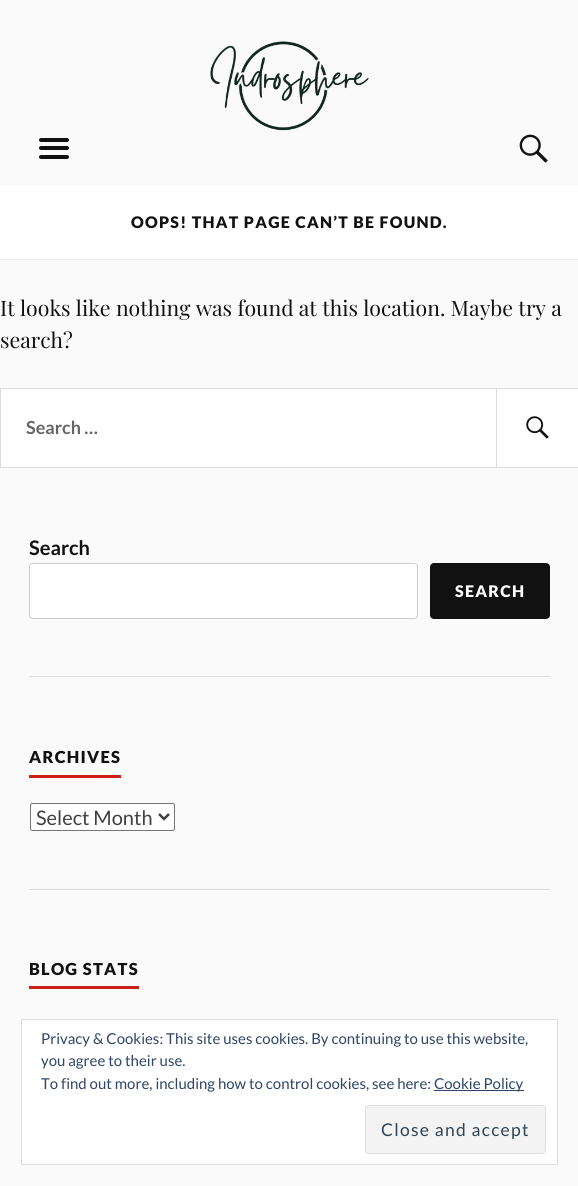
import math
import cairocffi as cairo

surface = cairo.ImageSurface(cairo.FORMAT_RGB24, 578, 1186)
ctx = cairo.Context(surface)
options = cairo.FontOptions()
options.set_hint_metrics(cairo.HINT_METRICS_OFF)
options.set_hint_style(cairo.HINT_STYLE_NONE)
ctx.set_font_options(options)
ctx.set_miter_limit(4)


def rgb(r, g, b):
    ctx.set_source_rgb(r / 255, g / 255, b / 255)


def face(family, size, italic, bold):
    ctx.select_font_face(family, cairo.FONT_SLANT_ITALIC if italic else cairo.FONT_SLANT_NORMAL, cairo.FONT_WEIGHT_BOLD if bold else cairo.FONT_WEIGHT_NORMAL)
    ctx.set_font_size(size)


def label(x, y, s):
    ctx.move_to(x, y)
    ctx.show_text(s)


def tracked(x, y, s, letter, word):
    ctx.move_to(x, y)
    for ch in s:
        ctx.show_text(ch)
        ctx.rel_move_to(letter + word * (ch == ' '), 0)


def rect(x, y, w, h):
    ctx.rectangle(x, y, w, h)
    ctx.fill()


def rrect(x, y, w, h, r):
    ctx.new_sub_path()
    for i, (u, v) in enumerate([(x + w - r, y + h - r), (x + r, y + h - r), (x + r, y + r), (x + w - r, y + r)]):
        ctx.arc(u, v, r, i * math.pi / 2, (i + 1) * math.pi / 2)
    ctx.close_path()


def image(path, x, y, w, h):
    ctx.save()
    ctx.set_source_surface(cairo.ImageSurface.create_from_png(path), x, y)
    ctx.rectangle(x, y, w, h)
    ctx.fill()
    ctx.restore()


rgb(250, 250, 250)
ctx.paint()
image('image0.png', 210, 41, 159, 90)
rgb(17, 17, 17)
rrect(39, 138, 30, 4, 2)
ctx.fill()
rrect(39, 146, 30, 4, 2)
ctx.fill()
rrect(39, 155, 30, 4, 2)
ctx.fill()
image('image1.png', 519, 134, 29, 29)
rgb(255, 255, 255)
rect(0, 185, 578, 74)
rgb(238, 238, 238)
rect(0, 259, 578, 1)
face('Lato Black', 15.9, 0, 0)
rgb(17, 17, 17)
tracked(131, 228, 'OOPS! THAT PAGE CAN’T BE FOUND.', 1.25, 0)
face('Playfair Display', 21.25, 0, 0)
label(0, 316, 'It looks like nothing was found at this location. Maybe try a')
label(0, 348, 'search?')
rgb(255, 255, 255)
rect(1, 389, 495, 78)
ctx.rectangle(0.5, 388.5, 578, 79)
rgb(221, 221, 221)
ctx.set_line_width(1)
ctx.stroke()
face('Lato', 18, 0, 1)
rgb(102, 102, 102)
label(26, 434, 'Search …')
rgb(255, 255, 255)
ctx.rectangle(496.5, 388.5, 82, 79)
ctx.fill_preserve()
rgb(221, 221, 221)
ctx.stroke()
image('image2.png', 526, 416, 23, 23)
face('Lato', 20, 0, 1)
rgb(17, 17, 17)
label(29, 555, 'Search')
rgb(255, 255, 255)
rrect(29.5, 563.5, 388, 55, 3.5)
ctx.fill_preserve()
rgb(204, 204, 204)
ctx.stroke()
rgb(17, 17, 17)
rrect(430, 563, 120, 56, 4)
ctx.fill()
face('Lato Black', 16, 0, 0)
rgb(255, 255, 255)
tracked(455, 597, 'SEARCH', 1.25, 0)
rgb(221, 221, 221)
rect(29, 676, 521, 1)
rgb(202, 32, 23)
rect(29, 775, 92, 3)
face('Lato Black', 16.5, 0, 0)
rgb(17, 17, 17)
tracked(29, 763, 'ARCHIVES', 1.25, 0)
rgb(255, 255, 255)
rrect(30.5, 803.5, 144, 27, 2)
ctx.fill_preserve()
rgb(118, 118, 118)
ctx.stroke()
ctx.new_path()
ctx.move_to(159, 814)
ctx.line_to(164, 819)
ctx.line_to(169, 814)
rgb(64, 64, 64)
ctx.set_line_width(2.5)
ctx.stroke()
face('Lato', 20, 0, 0)
label(36, 825, 'Select Month')
rgb(221, 221, 221)
rect(29, 889, 521, 1)
rgb(202, 32, 23)
rect(29, 986, 110, 3)
face('Lato Black', 16.5, 0, 0)
rgb(17, 17, 17)
tracked(29, 975, 'BLOG STATS', 1.25, 0)
rgb(255, 255, 255)
ctx.rectangle(21.5, 1019.5, 536, 145)
ctx.fill_preserve()
rgb(222, 222, 222)
ctx.set_line_width(1)
ctx.stroke()
face('Lato', 15, 0, 0)
rgb(46, 68, 103)
label(41, 1044, 'Privacy & Cookies: This site uses cookies. By continuing to use this website,')
label(41, 1066, 'you agree to their use.')
label(41, 1089, 'To find out more, including how to control cookies, see here:')
rect(434, 1090, 90, 1)
label(434, 1089, 'Cookie Policy')
rgb(243, 243, 243)
rrect(365.5, 1105.5, 180, 48, 3.5)
ctx.fill_preserve()
rgb(222, 222, 222)
ctx.stroke()
face('Lato', 17.5, 0, 0)
rgb(46, 68, 83)
tracked(381, 1136, 'Close and accept', 1.25, 0)
surface.write_to_png('render.png')
